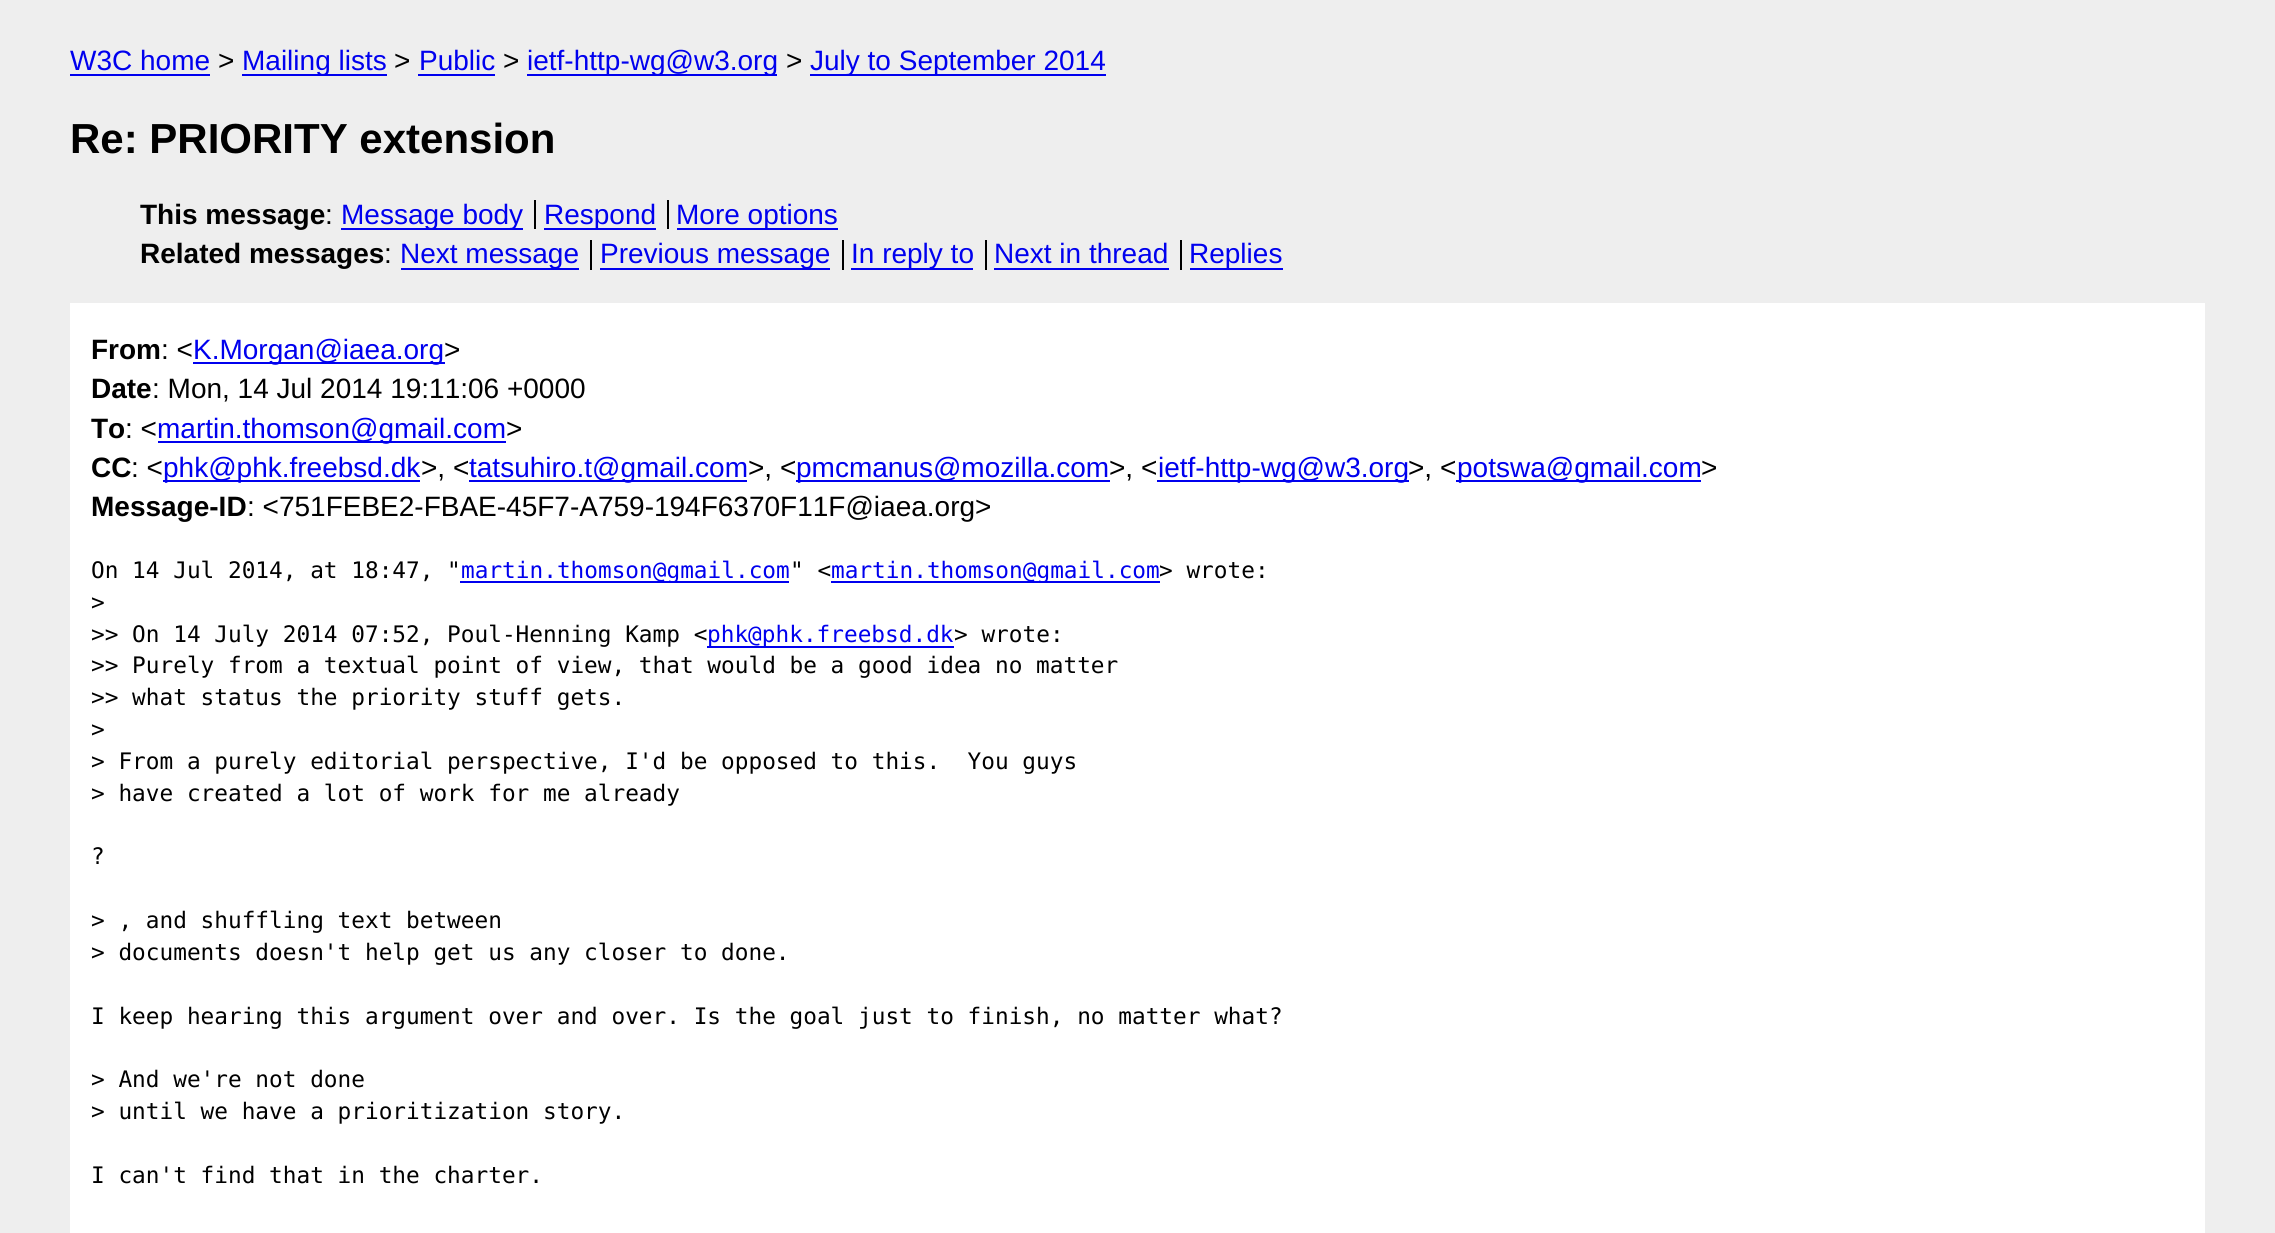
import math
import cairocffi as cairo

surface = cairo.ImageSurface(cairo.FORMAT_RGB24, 2275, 1233)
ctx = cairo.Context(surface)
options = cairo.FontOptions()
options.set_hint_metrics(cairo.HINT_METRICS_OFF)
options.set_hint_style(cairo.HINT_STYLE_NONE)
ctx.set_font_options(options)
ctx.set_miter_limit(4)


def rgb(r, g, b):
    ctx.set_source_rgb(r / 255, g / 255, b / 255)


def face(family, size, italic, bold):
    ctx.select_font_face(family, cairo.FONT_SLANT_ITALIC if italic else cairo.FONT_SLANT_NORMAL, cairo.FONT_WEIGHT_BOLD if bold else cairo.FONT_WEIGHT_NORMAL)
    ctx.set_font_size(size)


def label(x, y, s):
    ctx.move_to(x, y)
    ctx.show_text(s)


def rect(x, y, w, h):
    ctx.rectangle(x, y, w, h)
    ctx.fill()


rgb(238, 238, 238)
ctx.paint()
face('Liberation Sans', 28, 0, 0)
rgb(0, 0, 238)
label(70, 70, 'W3C home')
rect(70, 74, 140, 2)
rgb(0, 0, 0)
label(218, 70, '>')
rgb(0, 0, 238)
rect(242, 74, 145, 2)
label(242, 70, 'Mailing lists')
rgb(0, 0, 0)
label(394, 70, '>')
rgb(0, 0, 238)
label(419, 70, 'Public')
rect(418, 74, 77, 2)
rgb(0, 0, 0)
label(503, 70, '>')
rgb(0, 0, 238)
rect(527, 74, 250, 2)
label(527, 70, 'ietf-http-wg@w3.org')
rgb(0, 0, 0)
label(786, 70, '>')
rgb(0, 0, 238)
rect(810, 74, 296, 2)
label(810, 70, 'July to September 2014')
face('Liberation Sans', 42, 0, 1)
rgb(0, 0, 0)
label(70, 153, 'Re: PRIORITY extension')
face('Liberation Sans', 28, 0, 1)
label(140, 224, 'This message')
face('Liberation Sans', 28, 0, 0)
label(325, 224, ':')
rgb(0, 0, 238)
rect(341, 228, 182, 2)
label(341, 224, 'Message body')
rect(544, 228, 112, 2)
label(544, 224, 'Respond')
rgb(0, 0, 0)
rect(534, 200, 2, 29)
rgb(0, 0, 238)
rect(677, 228, 161, 2)
label(676, 224, 'More options')
rgb(0, 0, 0)
rect(667, 200, 2, 29)
face('Liberation Sans', 28, 0, 1)
label(140, 263, 'Related messages')
face('Liberation Sans', 28, 0, 0)
label(384, 263, ':')
rgb(0, 0, 238)
rect(401, 268, 178, 2)
label(400, 263, 'Next message')
rect(600, 268, 230, 2)
label(600, 263, 'Previous message')
rgb(0, 0, 0)
rect(590, 240, 2, 30)
rgb(0, 0, 238)
rect(851, 268, 122, 2)
label(851, 263, 'In reply to')
rgb(0, 0, 0)
rect(842, 240, 2, 30)
rect(985, 240, 2, 30)
rgb(0, 0, 238)
label(994, 263, 'Next in thread')
rect(994, 268, 175, 2)
rect(1190, 268, 93, 2)
label(1189, 263, 'Replies')
rgb(0, 0, 0)
rect(1180, 240, 2, 30)
rgb(255, 255, 255)
rect(70, 303, 2135, 930)
face('Liberation Sans', 28, 0, 1)
rgb(0, 0, 0)
label(91, 359, 'From')
face('Liberation Sans', 28, 0, 0)
label(161, 359, ': <')
rgb(0, 0, 238)
rect(193, 362, 252, 2)
label(193, 359, 'K.Morgan@iaea.org')
rgb(0, 0, 0)
label(444, 359, '>')
face('Liberation Sans', 28, 0, 1)
label(91, 398, 'Date')
face('Liberation Sans', 28, 0, 0)
label(152, 398, ': Mon, 14 Jul 2014 19:11:06 +0000')
face('Liberation Sans', 28, 0, 1)
label(91, 438, 'To')
face('Liberation Sans', 28, 0, 0)
label(125, 438, ': <')
rgb(0, 0, 238)
rect(158, 441, 348, 2)
label(157, 438, 'martin.thomson@gmail.com')
rgb(0, 0, 0)
label(506, 438, '>')
face('Liberation Sans', 28, 0, 1)
label(91, 477, 'CC')
face('Liberation Sans', 28, 0, 0)
label(131, 477, ': <')
rgb(0, 0, 238)
rect(163, 480, 257, 2)
label(163, 477, 'phk@phk.freebsd.dk')
rgb(0, 0, 0)
label(421, 477, '>, <')
rgb(0, 0, 238)
rect(469, 480, 278, 2)
label(469, 477, 'tatsuhiro.t@gmail.com')
rgb(0, 0, 0)
label(748, 477, '>, <')
rgb(0, 0, 238)
rect(796, 480, 314, 2)
label(796, 477, 'pmcmanus@mozilla.com')
rgb(0, 0, 0)
label(1109, 477, '>, <')
rgb(0, 0, 238)
rect(1157, 480, 252, 2)
label(1158, 477, 'ietf-http-wg@w3.org')
rgb(0, 0, 0)
label(1408, 477, '>, <')
rgb(0, 0, 238)
rect(1456, 480, 245, 2)
label(1457, 477, 'potswa@gmail.com')
rgb(0, 0, 0)
label(1701, 477, '>')
face('Liberation Sans', 28, 0, 1)
label(91, 516, 'Message-ID')
face('Liberation Sans', 28, 0, 0)
label(247, 516, ': <751FEBE2-FBAE-45F7-A759-194F6370F11F@iaea.org>')
face('DejaVu Sans Mono', 22.75, 0, 0)
label(91, 578, 'On 14 Jul 2014, at 18:47, "')
rgb(0, 0, 238)
rect(460, 581, 329, 2)
label(461, 578, 'martin.thomson@gmail.com')
rgb(0, 0, 0)
label(790, 578, '" <')
rgb(0, 0, 238)
rect(831, 581, 329, 2)
label(831, 578, 'martin.thomson@gmail.com')
rgb(0, 0, 0)
label(1159, 578, '> wrote:')
label(91, 610, '>')
label(91, 642, '>> On 14 July 2014 07:52, Poul-Henning Kamp <')
rgb(0, 0, 238)
rect(707, 646, 247, 2)
label(707, 642, 'phk@phk.freebsd.dk')
rgb(0, 0, 0)
label(954, 642, '> wrote:')
label(91, 673, '>> Purely from a textual point of view, that would be a good idea no matter')
label(91, 705, '>> what status the priority stuff gets.')
label(91, 737, '>')
label(91, 769, '> From a purely editorial perspective, I\'d be opposed to this.  You guys')
label(91, 801, '> have created a lot of work for me already')
label(91, 864, '?')
label(91, 928, '> , and shuffling text between')
label(91, 960, '> documents doesn\'t help get us any closer to done.')
label(91, 1024, 'I keep hearing this argument over and over. Is the goal just to finish, no matter what?')
label(91, 1087, '> And we\'re not done')
label(91, 1119, '> until we have a prioritization story.')
label(91, 1183, 'I can\'t find that in the charter.')
surface.write_to_png('render.png')
